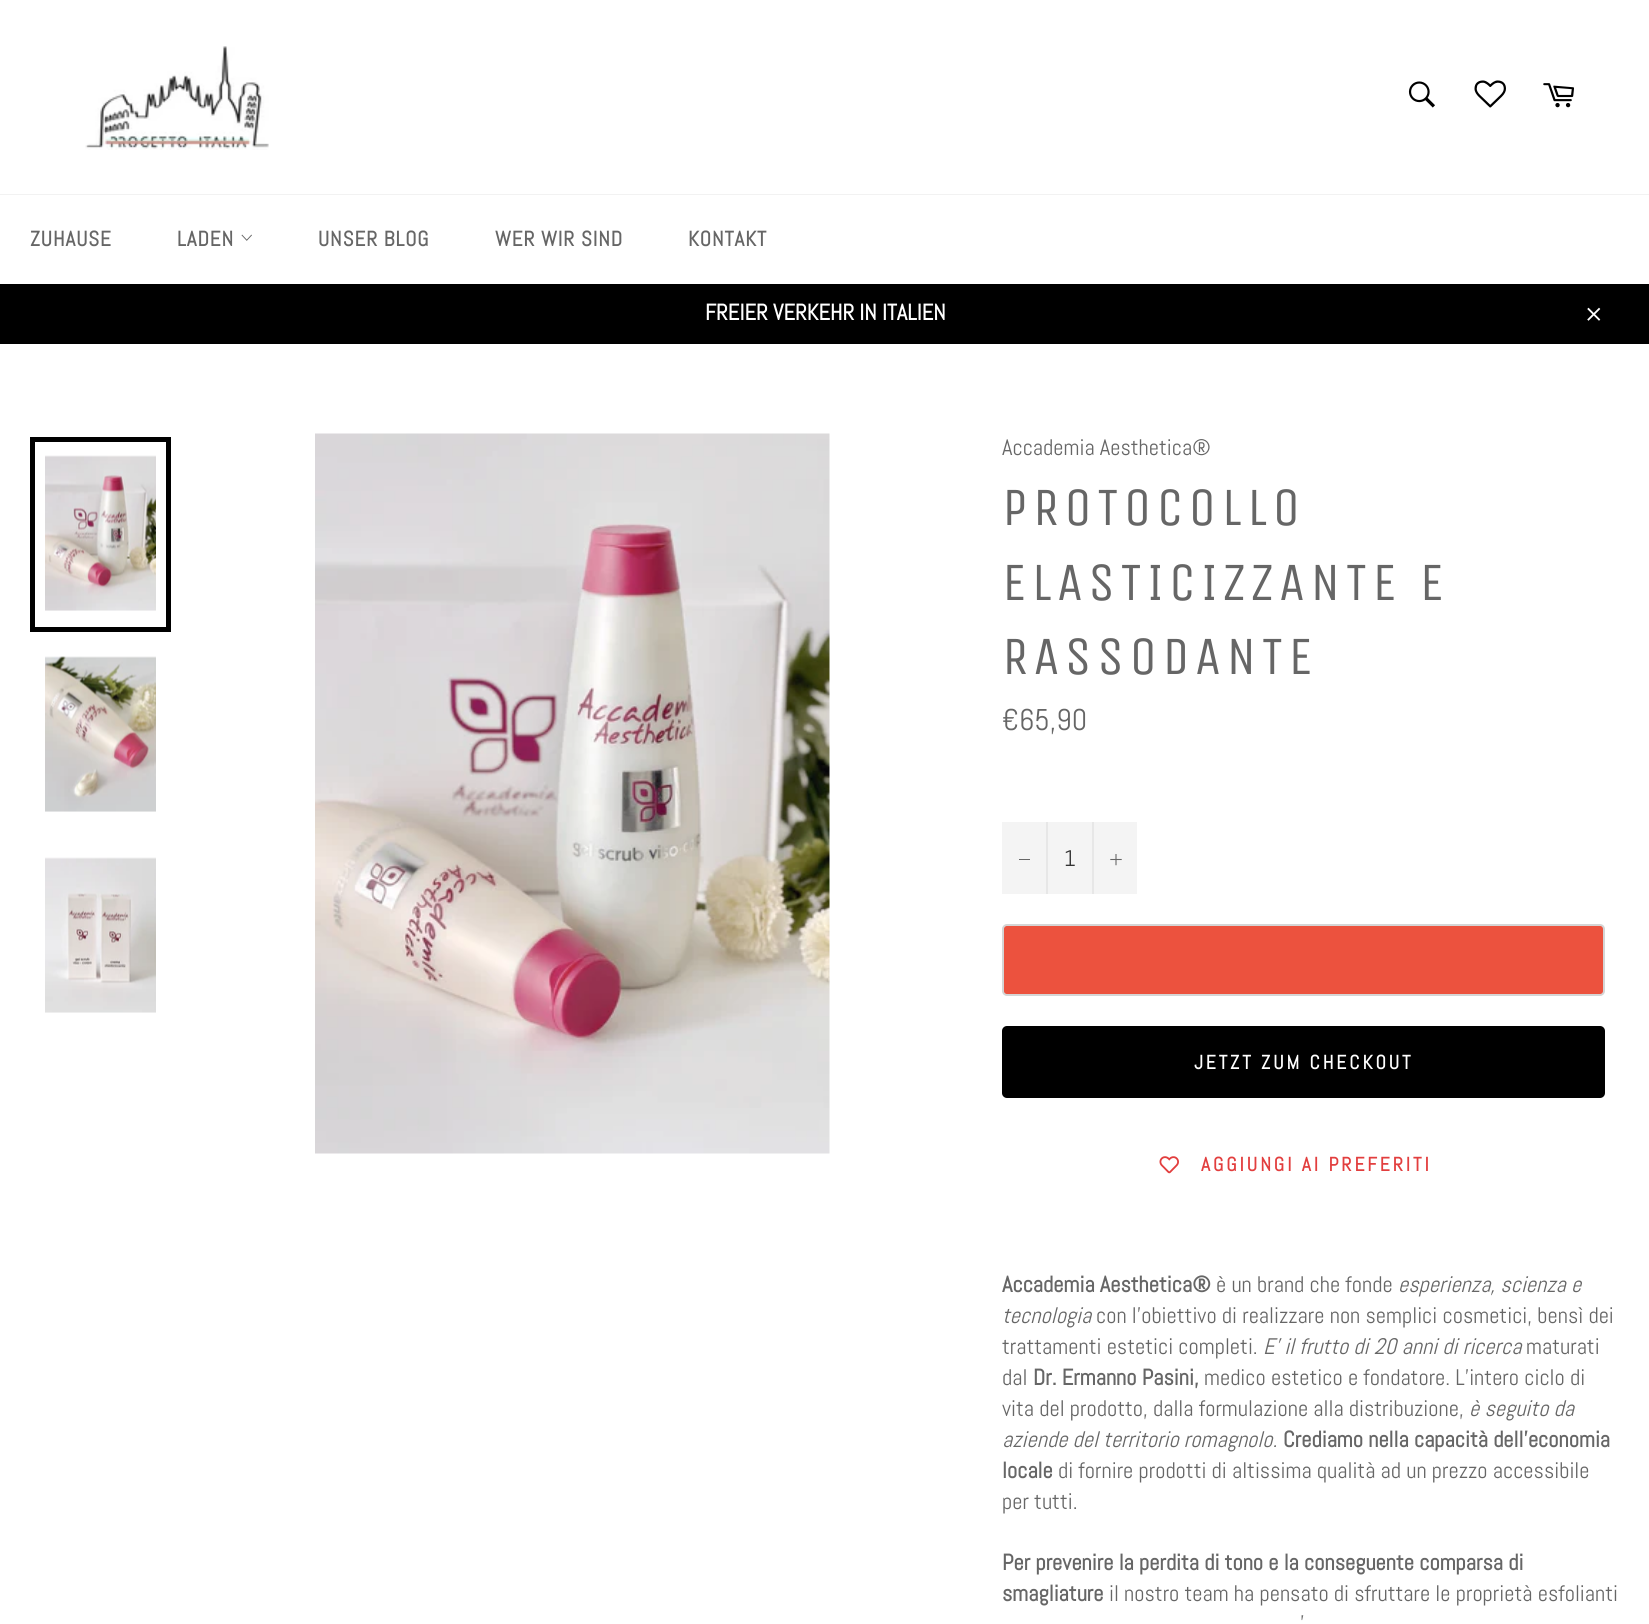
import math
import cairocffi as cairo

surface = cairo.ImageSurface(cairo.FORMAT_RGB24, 1649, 1624)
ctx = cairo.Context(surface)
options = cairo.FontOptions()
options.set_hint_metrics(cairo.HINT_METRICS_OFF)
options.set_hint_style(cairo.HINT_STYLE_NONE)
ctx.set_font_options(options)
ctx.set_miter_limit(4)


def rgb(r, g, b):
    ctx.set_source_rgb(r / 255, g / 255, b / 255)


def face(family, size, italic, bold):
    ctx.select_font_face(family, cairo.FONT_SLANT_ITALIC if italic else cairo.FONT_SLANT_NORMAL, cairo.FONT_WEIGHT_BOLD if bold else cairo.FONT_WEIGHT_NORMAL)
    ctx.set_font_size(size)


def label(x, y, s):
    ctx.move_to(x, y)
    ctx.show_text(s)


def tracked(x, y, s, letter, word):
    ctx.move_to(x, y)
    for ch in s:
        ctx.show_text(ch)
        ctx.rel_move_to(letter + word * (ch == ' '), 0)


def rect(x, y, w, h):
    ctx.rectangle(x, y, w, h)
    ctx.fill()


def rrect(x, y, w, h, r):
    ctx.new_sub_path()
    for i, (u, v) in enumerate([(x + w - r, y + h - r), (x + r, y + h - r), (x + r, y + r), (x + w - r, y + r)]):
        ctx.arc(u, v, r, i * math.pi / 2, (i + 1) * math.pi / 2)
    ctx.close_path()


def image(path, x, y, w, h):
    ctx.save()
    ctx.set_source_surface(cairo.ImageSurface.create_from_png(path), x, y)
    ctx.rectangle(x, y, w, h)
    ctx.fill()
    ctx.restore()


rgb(255, 255, 255)
ctx.paint()
image('image0.png', 85, 46, 184, 104)
image('image1.png', 1408, 81, 27, 27)
image('image2.png', 1474, 80, 32, 28)
image('image3.png', 1543, 83, 31, 25)
rgb(242, 242, 242)
rect(0, 194, 1649, 1)
face('Abel', 21, 0, 1)
rgb(102, 102, 102)
tracked(30, 246, 'ZUHAUSE', 0.9, 0)
tracked(177, 246, 'LADEN', 0.9, 0)
image('image4.png', 241, 234, 11, 7)
tracked(318, 246, 'UNSER BLOG', 0.9, 0)
tracked(495, 246, 'WER WIR SIND', 0.9, 0)
tracked(688, 246, 'KONTAKT', 0.9, 0)
rgb(0, 0, 0)
rect(0, 284, 1649, 60)
face('Abel', 22.5, 0, 1)
rgb(255, 255, 255)
label(705, 320, 'FREIER VERKEHR IN ITALIEN')
image('image5.png', 1587, 307, 14, 14)
image('image6.png', 45, 455, 111, 156)
ctx.rectangle(32.5, 439.5, 136, 190)
rgb(0, 0, 0)
ctx.set_line_width(5)
ctx.stroke()
image('image7.png', 45, 656, 111, 156)
image('image8.png', 45, 857, 111, 156)
image('image9.png', 315, 433, 515, 721)
face('Abel', 22.5, 0, 0)
rgb(102, 102, 102)
label(1002, 455, 'Accademia Aesthetica®')
face('Unica One', 54, 0, 0)
tracked(1002, 525, 'PROTOCOLLO', 5.4, 0)
tracked(1002, 600, 'ELASTICIZZANTE E', 5.4, 0)
tracked(1002, 674, 'RASSODANTE', 5.4, 0)
face('Abel', 30, 0, 0)
label(1002, 730, '€65,90')
rgb(244, 244, 244)
rect(1002, 822, 135, 72)
rgb(231, 231, 231)
rect(1046, 822, 2, 72)
rgb(102, 102, 102)
rect(1019, 859, 11, 1)
face('Abel', 22.5, 0, 0)
rgb(51, 51, 51)
label(1064, 866, '1')
rgb(231, 231, 231)
rect(1092, 822, 2, 72)
image('image10.png', 1110, 854, 12, 12)
rgb(236, 82, 62)
rrect(1003, 925, 601, 70, 4)
ctx.fill_preserve()
rgb(213, 213, 213)
ctx.set_line_width(2)
ctx.stroke()
rgb(0, 0, 0)
rrect(1002, 1026, 603, 72, 5)
ctx.fill()
face('Abel', 19.5, 0, 1)
rgb(255, 255, 255)
tracked(1194, 1069, 'JETZT ZUM CHECKOUT', 2.9, 0)
image('image11.png', 1159, 1156, 20, 18)
rgb(226, 62, 62)
tracked(1201, 1171, 'AGGIUNGI AI PREFERITI', 2.9, 0)
face('Abel', 22.5, 0, 1)
rgb(102, 102, 102)
label(1002, 1292, 'Accademia Aesthetica®')
face('Abel', 22.5, 0, 0)
label(1216, 1292, 'è un brand che fonde')
face('Abel', 22.5, 1, 0)
label(1398, 1292, 'esperienza, scienza e')
label(1002, 1323, 'tecnologia')
face('Abel', 22.5, 0, 0)
label(1096, 1323, 'con l’obiettivo di realizzare non semplici cosmetici, bensì dei')
label(1002, 1354, 'trattamenti estetici completi.')
face('Abel', 22.5, 1, 0)
label(1263, 1354, 'E’ il frutto di 20 anni di ricerca')
face('Abel', 22.5, 0, 0)
label(1526, 1354, 'maturati')
label(1002, 1385, 'dal')
face('Abel', 22.5, 0, 1)
label(1033, 1385, 'Dr. Ermanno Pasini,')
face('Abel', 22.5, 0, 0)
label(1204, 1385, 'medico estetico e fondatore. L\'intero ciclo di')
label(1002, 1416, 'vita del prodotto, dalla formulazione alla distribuzione,')
face('Abel', 22.5, 1, 0)
label(1469, 1416, 'è seguito da')
label(1002, 1447, 'aziende del territorio romagnolo.')
face('Abel', 22.5, 0, 1)
label(1283, 1447, 'Crediamo nella capacità dell\'economia')
label(1002, 1478, 'locale')
face('Abel', 22.5, 0, 0)
label(1058, 1478, 'di fornire prodotti di altissima qualità ad un prezzo accessibile')
label(1002, 1509, 'per tutti.')
face('Abel', 22.5, 0, 1)
label(1002, 1570, 'Per prevenire la perdita di tono e la conseguente comparsa di')
label(1002, 1601, 'smagliature')
face('Abel', 22.5, 0, 0)
label(1109, 1601, 'il nostro team ha pensato di sfruttare le proprietà esfolianti')
label(1300, 1631, '’')
surface.write_to_png('render.png')
